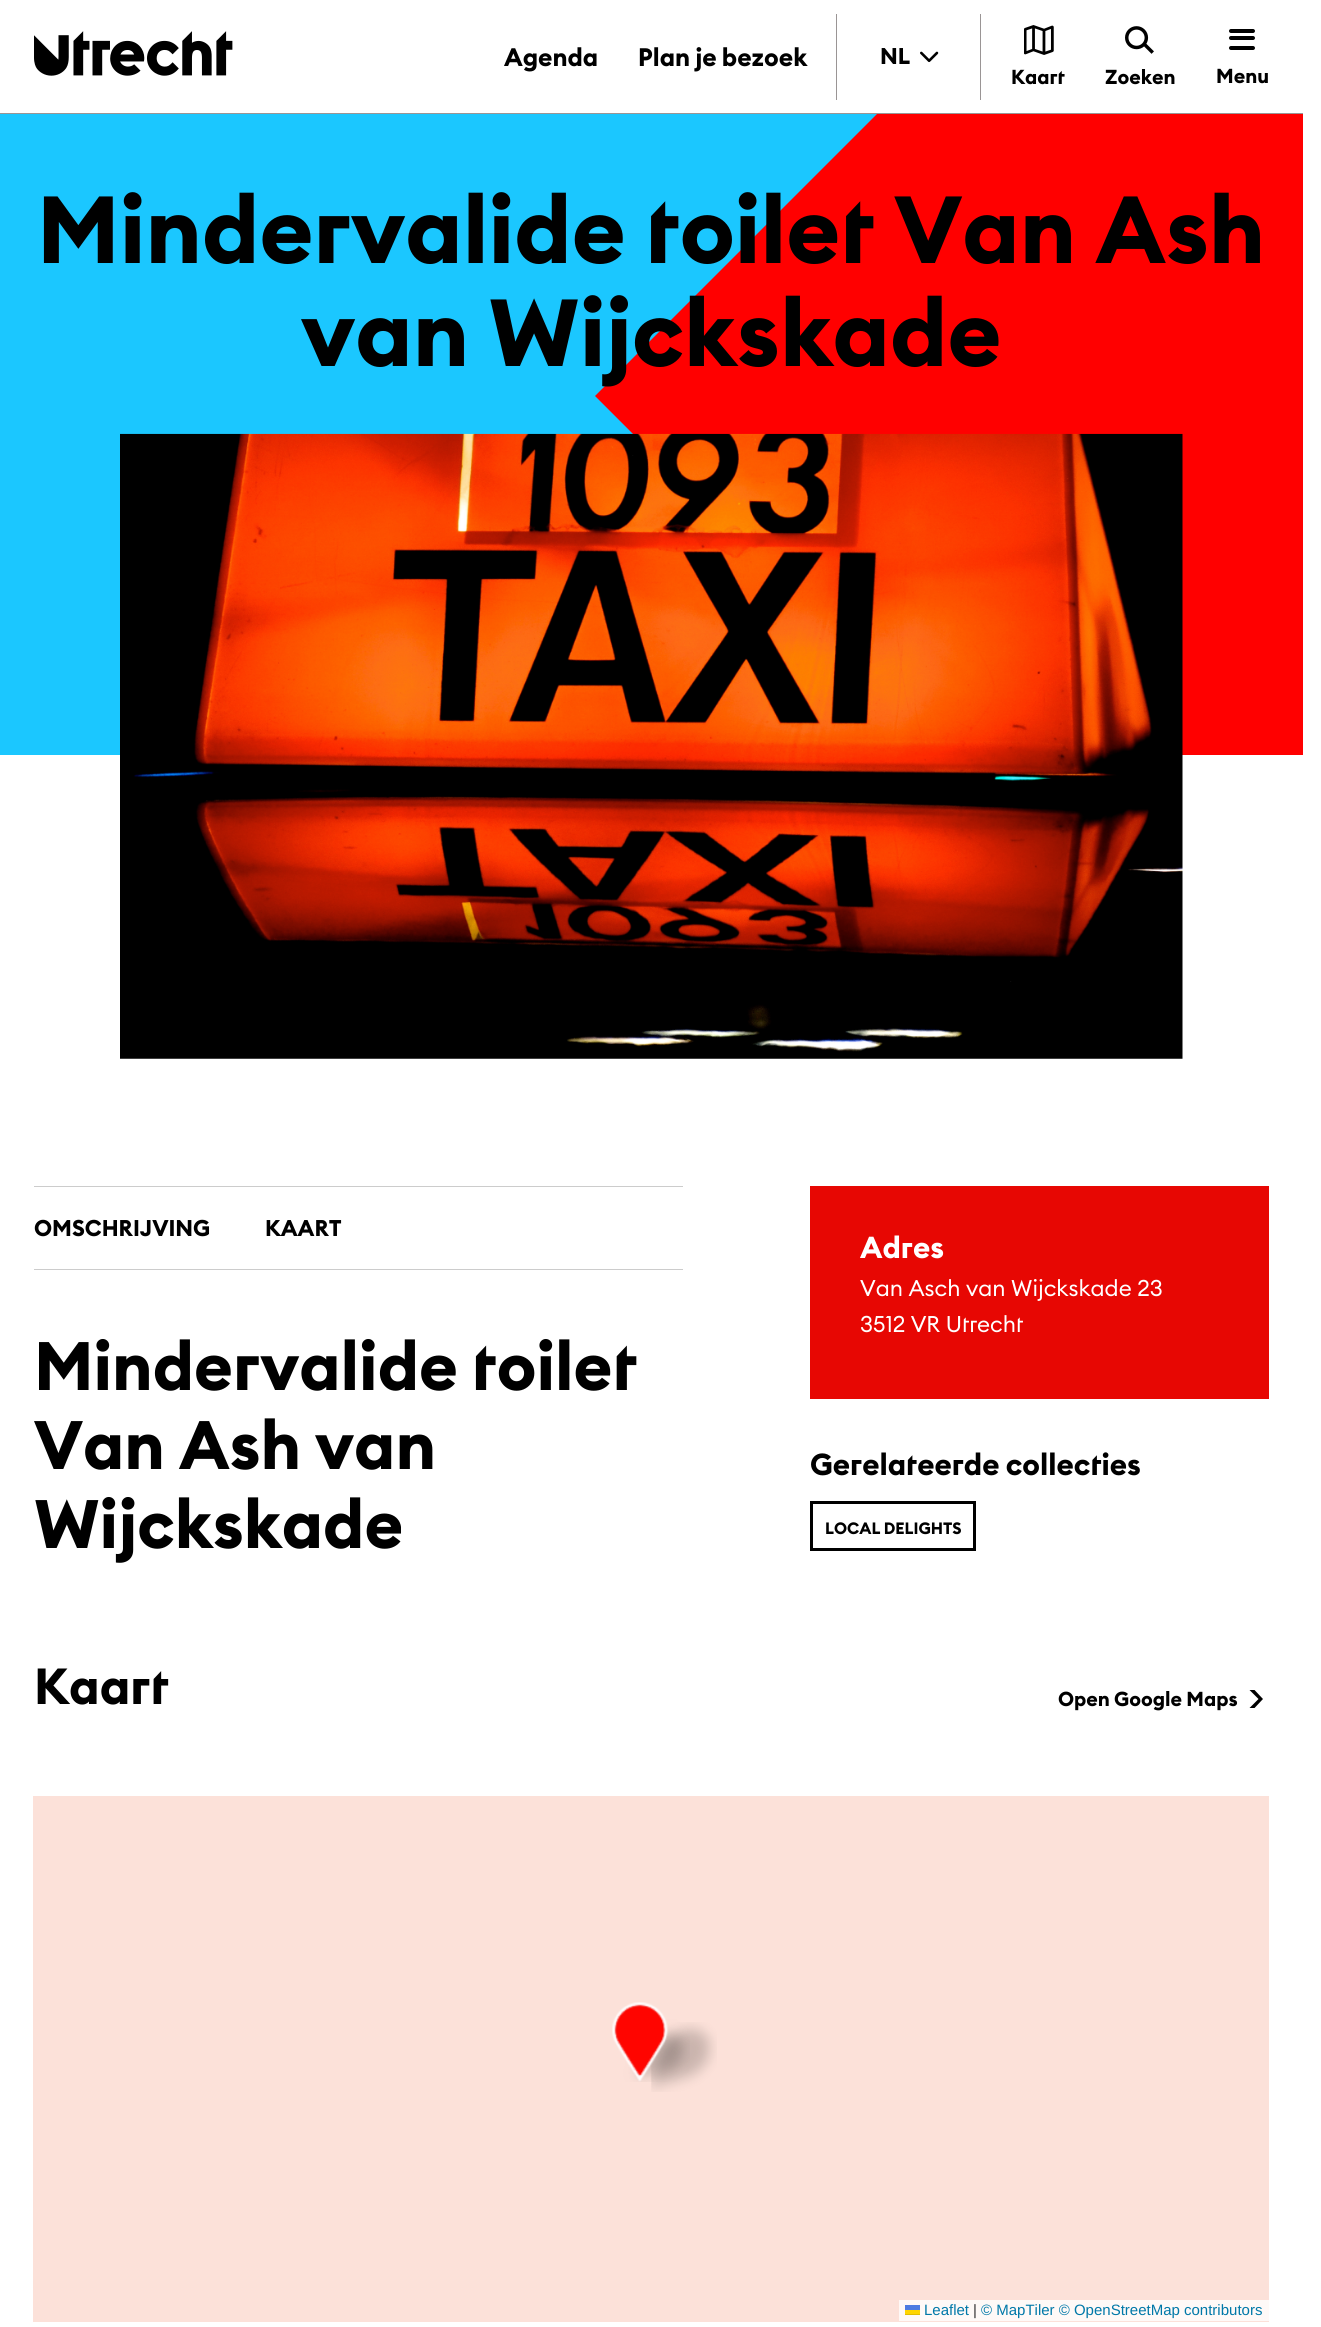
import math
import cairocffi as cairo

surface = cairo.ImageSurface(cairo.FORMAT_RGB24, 1321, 2327)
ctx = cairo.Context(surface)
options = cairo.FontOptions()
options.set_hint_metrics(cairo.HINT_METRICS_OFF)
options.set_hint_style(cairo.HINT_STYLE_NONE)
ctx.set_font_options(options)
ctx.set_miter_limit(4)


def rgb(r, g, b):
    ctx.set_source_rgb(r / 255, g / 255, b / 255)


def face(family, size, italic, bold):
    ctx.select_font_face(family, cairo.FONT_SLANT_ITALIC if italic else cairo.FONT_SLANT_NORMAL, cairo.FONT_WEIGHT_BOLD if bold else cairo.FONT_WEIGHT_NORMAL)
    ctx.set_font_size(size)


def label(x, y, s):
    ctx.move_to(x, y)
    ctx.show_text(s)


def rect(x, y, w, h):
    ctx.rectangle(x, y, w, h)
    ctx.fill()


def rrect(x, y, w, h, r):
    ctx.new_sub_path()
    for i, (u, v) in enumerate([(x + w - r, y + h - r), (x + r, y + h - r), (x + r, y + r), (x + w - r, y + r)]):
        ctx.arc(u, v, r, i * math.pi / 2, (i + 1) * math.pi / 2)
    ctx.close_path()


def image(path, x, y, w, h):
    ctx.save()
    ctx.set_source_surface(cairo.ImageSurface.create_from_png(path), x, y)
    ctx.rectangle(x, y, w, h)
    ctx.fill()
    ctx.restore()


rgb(255, 255, 255)
ctx.paint()
rgb(27, 199, 255)
rect(0, 114, 877, 641)
ctx.save()
ctx.rectangle(0, 0, 1303, 755)
ctx.clip()
rgb(255, 0, 0)
ctx.new_path()
ctx.move_to(595, 396)
ctx.line_to(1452, -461)
ctx.line_to(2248, 334)
ctx.line_to(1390, 1191)
ctx.close_path()
ctx.fill()
ctx.restore()
rgb(255, 255, 255)
rect(878, 0, 425, 113)
rgb(154, 149, 149)
rect(0, 113, 1303, 1)
image('image0.png', 34, 31, 199, 45)
face('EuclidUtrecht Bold', 25, 0, 1)
rgb(0, 0, 0)
label(504, 66, 'Agenda')
label(638, 66, 'Plan je bezoek')
rgb(154, 149, 149)
rect(836, 14, 1, 86)
face('EuclidUtrecht Bold', 22.5, 0, 1)
rgb(0, 0, 0)
label(880, 64, 'NL')
image('image1.png', 920, 51, 19, 12)
rgb(154, 149, 149)
rect(980, 14, 1, 86)
image('image2.png', 1024, 25, 30, 30)
face('EuclidUtrecht Bold', 20, 0, 1)
rgb(0, 0, 0)
label(1011, 84, 'Kaart')
image('image3.png', 1125, 26, 29, 28)
label(1105, 84, 'Zoeken')
rrect(1229, 29, 26, 4, 2)
ctx.fill()
rrect(1229, 36, 26, 4, 2)
ctx.fill()
rrect(1229, 46, 26, 4, 2)
ctx.fill()
label(1216, 83, 'Menu')
face('EuclidUtrecht Bold', 93.75, 0, 1)
label(37, 263, 'Mindervalide toilet Van Ash')
label(301, 366, 'van Wijckskade')
image('image4.png', 120, 433, 1063, 626)
rgb(204, 204, 204)
rect(34, 1186, 649, 1)
rect(34, 1269, 649, 1)
face('EuclidUtrecht Bold', 22.5, 0, 1)
rgb(0, 0, 0)
label(34, 1236, 'OMSCHRIJVING')
label(265, 1236, 'KAART')
face('EuclidUtrecht Bold', 67.5, 0, 1)
label(34, 1390, 'Mindervalide toilet')
label(34, 1469, 'Van Ash van')
label(34, 1548, 'Wijckskade')
rgb(231, 7, 3)
rect(810, 1186, 459, 213)
face('EuclidUtrecht Bold', 30, 0, 1)
rgb(255, 255, 255)
label(860, 1258, 'Adres')
face('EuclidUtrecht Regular', 22.5, 0, 0)
label(860, 1296, 'Van Asch van Wijckskade 23')
label(860, 1332, '3512 VR Utrecht')
face('EuclidUtrecht Bold', 30, 0, 1)
rgb(0, 0, 0)
label(810, 1475, 'Gerelateerde collecties')
ctx.rectangle(811.5, 1502.5, 163, 47)
ctx.set_line_width(3)
ctx.stroke()
face('EuclidUtrecht Bold', 16.25, 0, 1)
label(825, 1534, 'LOCAL DELIGHTS')
face('EuclidUtrecht Bold', 50, 0, 1)
label(34, 1704, 'Kaart')
face('EuclidUtrecht Bold', 20, 0, 1)
label(1058, 1706, 'Open Google Maps')
ctx.new_path()
ctx.move_to(1249.5, 1690)
ctx.line_to(1258.5, 1699)
ctx.line_to(1249.5, 1708)
ctx.line_to(1254.5, 1708)
ctx.line_to(1263, 1699)
ctx.line_to(1254.5, 1690)
ctx.close_path()
ctx.fill()
rgb(252, 225, 217)
rect(33, 1796, 1236, 526)
image('image6.png', 651, 2022, 66, 70)
image('image5.png', 612, 2002, 78, 80)
rgb(254, 249, 247)
rect(899, 2300, 370, 21)
face('Liberation Sans', 15, 0, 0)
rgb(0, 120, 168)
label(924, 2315, 'Leaflet')
rgb(76, 123, 225)
rect(905, 2305, 15, 5)
rgb(255, 213, 0)
rect(905, 2310, 15, 4)
rgb(224, 188, 0)
rect(905, 2314, 15, 1)
rgb(51, 51, 51)
label(973, 2315, '|')
rgb(0, 120, 168)
label(981, 2315, '© MapTiler © OpenStreetMap contributors')
surface.write_to_png('render.png')
